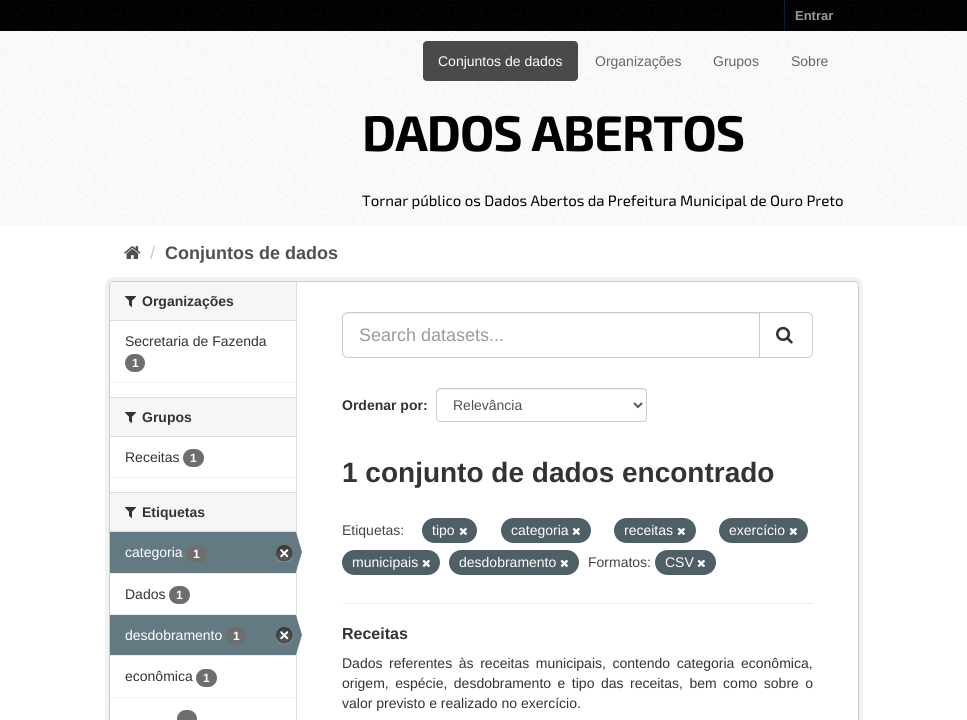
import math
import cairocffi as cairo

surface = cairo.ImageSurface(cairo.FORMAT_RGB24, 967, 720)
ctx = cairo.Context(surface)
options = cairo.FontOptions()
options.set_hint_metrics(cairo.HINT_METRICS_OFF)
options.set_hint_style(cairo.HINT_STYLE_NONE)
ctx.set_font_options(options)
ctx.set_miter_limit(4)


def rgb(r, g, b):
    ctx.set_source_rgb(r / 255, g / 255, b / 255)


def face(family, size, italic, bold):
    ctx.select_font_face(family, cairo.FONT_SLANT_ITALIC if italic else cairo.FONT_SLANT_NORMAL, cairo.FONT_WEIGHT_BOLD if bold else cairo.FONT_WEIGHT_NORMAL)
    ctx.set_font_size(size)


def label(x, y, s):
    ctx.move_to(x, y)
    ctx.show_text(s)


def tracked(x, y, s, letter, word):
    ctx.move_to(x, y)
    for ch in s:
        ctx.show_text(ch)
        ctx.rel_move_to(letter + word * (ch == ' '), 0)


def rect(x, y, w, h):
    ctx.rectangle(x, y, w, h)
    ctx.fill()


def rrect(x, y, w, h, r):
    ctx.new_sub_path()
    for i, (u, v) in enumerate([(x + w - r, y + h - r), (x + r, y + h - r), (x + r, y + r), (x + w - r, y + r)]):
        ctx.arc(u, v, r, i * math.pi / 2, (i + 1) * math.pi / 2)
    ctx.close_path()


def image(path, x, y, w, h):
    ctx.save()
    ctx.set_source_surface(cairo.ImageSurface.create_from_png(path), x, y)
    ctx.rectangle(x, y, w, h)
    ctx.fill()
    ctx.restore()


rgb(0, 0, 0)
ctx.paint()
image('image0.png', 0, 0, 967, 31)
rgb(0, 35, 46)
rect(784, 0, 1, 31)
face('Liberation Sans', 13, 0, 1)
rgb(154, 154, 154)
label(795, 20, 'Entrar')
rgb(255, 255, 255)
rect(0, 31, 967, 689)
image('image1.png', 0, 31, 967, 195)
rgb(74, 74, 74)
rrect(423, 41, 155, 40, 4)
ctx.fill()
face('Liberation Sans', 14, 0, 0)
rgb(255, 255, 255)
label(438, 66, 'Conjuntos de dados')
rgb(100, 100, 100)
label(595, 66, 'Organizações')
label(713, 66, 'Grupos')
label(791, 66, 'Sobre')
face('Exo 2', 50, 0, 1)
rgb(0, 0, 0)
tracked(362, 151, 'DADOS ABERTOS', -1, 0)
face('Exo 2', 15, 0, 0)
label(362, 206, 'Tornar público os Dados Abertos da Prefeitura Municipal de Ouro Preto')
image('image2.png', 124, 246, 17, 13)
face('Liberation Sans', 18, 0, 0)
rgb(204, 204, 204)
label(150, 259, '/')
face('Liberation Sans', 18, 0, 1)
rgb(80, 80, 80)
label(165, 259, 'Conjuntos de dados')
rrect(107, 279, 754, 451, 6)
rgb(242, 242, 242)
ctx.set_line_width(4)
ctx.stroke()
rgb(255, 255, 255)
rrect(109.5, 281.5, 749, 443, 3.5)
ctx.fill_preserve()
rgb(204, 204, 204)
ctx.set_line_width(1)
ctx.stroke()
rgb(246, 246, 246)
ctx.new_path()
ctx.move_to(113, 282)
ctx.line_to(296, 282)
ctx.line_to(296, 321)
ctx.line_to(110, 321)
ctx.line_to(110, 285)
ctx.curve_to(110, 283.5, 111.5, 282, 113, 282)
ctx.close_path()
ctx.fill()
rgb(221, 221, 221)
rect(110, 320, 186, 1)
image('image3.png', 125, 296, 11, 11)
face('Liberation Sans', 14, 0, 1)
rgb(51, 51, 51)
label(142, 306, 'Organizações')
face('Liberation Sans', 14, 0, 0)
label(125, 346, 'Secretaria de Fazenda')
rgb(110, 110, 110)
rrect(125, 354, 20, 18, 9)
ctx.fill()
face('Liberation Sans', 12, 0, 1)
rgb(255, 255, 255)
label(132, 367, '1')
ctx.new_path()
ctx.move_to(110, 382.5)
ctx.line_to(296, 382.5)
rgb(221, 221, 221)
ctx.set_dash([1, 1])
ctx.stroke()
rgb(246, 246, 246)
rect(110, 398, 186, 38)
rgb(221, 221, 221)
rect(110, 397, 186, 1)
rect(110, 436, 186, 1)
image('image3.png', 125, 412, 11, 11)
face('Liberation Sans', 14, 0, 1)
rgb(51, 51, 51)
label(142, 422, 'Grupos')
face('Liberation Sans', 14, 0, 0)
label(125, 462, 'Receitas')
rgb(110, 110, 110)
rrect(183, 449, 21, 18, 9)
ctx.fill()
face('Liberation Sans', 12, 0, 1)
rgb(255, 255, 255)
label(190, 462, '1')
ctx.new_path()
ctx.move_to(110, 477.5)
ctx.line_to(296, 477.5)
rgb(221, 221, 221)
ctx.stroke()
rgb(246, 246, 246)
rect(110, 493, 186, 38)
rgb(221, 221, 221)
rect(110, 492, 186, 1)
rect(110, 531, 186, 1)
image('image3.png', 125, 507, 11, 11)
face('Liberation Sans', 14, 0, 1)
rgb(51, 51, 51)
label(142, 517, 'Etiquetas')
rgb(246, 246, 246)
rect(111, 573, 185, 1)
ctx.new_path()
ctx.move_to(110, 573.5)
ctx.line_to(296, 573.5)
rgb(221, 221, 221)
ctx.stroke()
rgb(100, 122, 130)
rect(110, 532, 186, 41)
face('Liberation Sans', 14, 0, 0)
rgb(255, 255, 255)
label(125, 557, 'categoria')
rgb(110, 110, 110)
rrect(186, 545, 21, 18, 9)
ctx.fill()
face('Liberation Sans', 12, 0, 1)
rgb(255, 255, 255)
label(193, 558, '1')
image('image4.png', 276, 545, 17, 17)
rgb(221, 221, 221)
rect(296, 282, 1, 438)
rgb(100, 122, 130)
ctx.new_path()
ctx.move_to(296, 572)
ctx.line_to(296, 532)
ctx.line_to(302, 552)
ctx.close_path()
ctx.fill()
ctx.new_path()
ctx.move_to(110, 614.5)
ctx.line_to(296, 614.5)
rgb(221, 221, 221)
ctx.stroke()
face('Liberation Sans', 14, 0, 0)
rgb(51, 51, 51)
label(125, 599, 'Dados')
rgb(110, 110, 110)
rrect(169, 586, 21, 18, 9)
ctx.fill()
face('Liberation Sans', 12, 0, 1)
rgb(255, 255, 255)
label(176, 599, '1')
rgb(246, 246, 246)
rect(111, 655, 185, 1)
ctx.new_path()
ctx.move_to(110, 655.5)
ctx.line_to(296, 655.5)
rgb(221, 221, 221)
ctx.stroke()
rgb(100, 122, 130)
rect(110, 615, 186, 40)
face('Liberation Sans', 14, 0, 0)
rgb(255, 255, 255)
label(125, 640, 'desdobramento')
rgb(110, 110, 110)
rrect(226, 627, 20, 18, 9)
ctx.fill()
face('Liberation Sans', 12, 0, 1)
rgb(255, 255, 255)
label(233, 640, '1')
image('image4.png', 276, 627, 17, 17)
rgb(100, 122, 130)
ctx.new_path()
ctx.move_to(296, 655)
ctx.line_to(296, 615)
ctx.line_to(302, 635)
ctx.close_path()
ctx.fill()
ctx.new_path()
ctx.move_to(110, 697.5)
ctx.line_to(296, 697.5)
rgb(221, 221, 221)
ctx.stroke()
face('Liberation Sans', 14, 0, 0)
rgb(51, 51, 51)
label(125, 681, 'econômica')
rgb(110, 110, 110)
rrect(196, 669, 21, 18, 9)
ctx.fill()
face('Liberation Sans', 12, 0, 1)
rgb(255, 255, 255)
label(203, 682, '1')
rgb(110, 110, 110)
rrect(177, 710, 20, 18, 9)
ctx.fill()
ctx.new_path()
ctx.move_to(342, 603.5)
ctx.line_to(813, 603.5)
rgb(221, 221, 221)
ctx.stroke()
rgb(236, 236, 236)
ctx.new_path()
ctx.move_to(348, 314)
ctx.line_to(759, 314)
ctx.line_to(759, 313)
ctx.line_to(348, 313)
ctx.curve_to(345, 313, 343, 316, 343, 319)
ctx.curve_to(343, 316, 345, 314, 348, 314)
ctx.close_path()
ctx.fill()
ctx.new_path()
ctx.move_to(348, 312.5)
ctx.line_to(759.5, 312.5)
ctx.line_to(759.5, 357.5)
ctx.line_to(348, 357.5)
ctx.curve_to(345, 357.5, 342.5, 355, 342.5, 352)
ctx.line_to(342.5, 318)
ctx.curve_to(342.5, 315, 345, 312.5, 348, 312.5)
ctx.close_path()
rgb(204, 204, 204)
ctx.set_dash([])
ctx.stroke()
face('Liberation Sans', 18, 0, 0)
rgb(154, 154, 154)
label(359, 341, 'Search datasets...')
rgb(255, 255, 255)
ctx.new_path()
ctx.move_to(759.5, 312.5)
ctx.line_to(807, 312.5)
ctx.curve_to(810, 312.5, 812.5, 315, 812.5, 318)
ctx.line_to(812.5, 352)
ctx.curve_to(812.5, 355, 810, 357.5, 807, 357.5)
ctx.line_to(759.5, 357.5)
ctx.close_path()
ctx.fill_preserve()
rgb(204, 204, 204)
ctx.stroke()
image('image5.png', 776, 326, 17, 18)
face('Liberation Sans', 14, 0, 1)
rgb(51, 51, 51)
label(342, 410, 'Ordenar por:')
rgb(236, 236, 236)
ctx.new_path()
ctx.move_to(440, 390)
ctx.line_to(643, 390)
ctx.curve_to(645, 390, 646, 391, 646, 393)
ctx.line_to(646, 392)
ctx.curve_to(646, 390, 645, 389, 643, 389)
ctx.line_to(440, 389)
ctx.curve_to(438, 389, 437, 390, 437, 392)
ctx.line_to(437, 393)
ctx.curve_to(437, 391, 438, 390, 440, 390)
ctx.close_path()
ctx.fill()
rrect(436.5, 388.5, 210, 33, 3.5)
rgb(204, 204, 204)
ctx.stroke()
ctx.new_path()
ctx.move_to(634, 403)
ctx.line_to(638, 407)
ctx.line_to(642, 403)
rgb(85, 85, 85)
ctx.set_line_width(2)
ctx.stroke()
face('Liberation Sans', 14, 0, 0)
rgb(80, 80, 80)
label(453, 410, 'Relevância')
face('Liberation Sans', 28, 0, 1)
rgb(51, 51, 51)
label(342, 482, '1 conjunto de dados encontrado')
face('Liberation Sans', 14, 0, 0)
rgb(68, 68, 68)
label(342, 535, 'Etiquetas:')
rgb(78, 95, 101)
rrect(422, 518, 55, 25, 12.5)
ctx.fill()
rgb(255, 255, 255)
label(432, 535, 'tipo')
image('image6.png', 459, 527, 8, 9)
rgb(78, 95, 101)
rrect(501, 518, 90, 25, 12.5)
ctx.fill()
rgb(255, 255, 255)
label(511, 535, 'categoria')
image('image6.png', 572, 527, 8, 9)
rgb(78, 95, 101)
rrect(614, 518, 82, 25, 12.5)
ctx.fill()
rgb(255, 255, 255)
label(624, 535, 'receitas')
image('image6.png', 677, 527, 8, 9)
rgb(78, 95, 101)
rrect(719, 518, 89, 25, 12.5)
ctx.fill()
rgb(255, 255, 255)
label(729, 535, 'exercício')
image('image6.png', 789, 527, 8, 9)
rgb(78, 95, 101)
rrect(342, 550, 98, 25, 12.5)
ctx.fill()
rgb(255, 255, 255)
label(352, 567, 'municipais')
image('image6.png', 422, 559, 8, 9)
rgb(78, 95, 101)
rrect(449, 550, 130, 25, 12.5)
ctx.fill()
rgb(255, 255, 255)
label(459, 567, 'desdobramento')
image('image6.png', 560, 559, 8, 9)
rgb(68, 68, 68)
label(588, 567, 'Formatos:')
rgb(78, 95, 101)
rrect(655, 550, 61, 25, 12.5)
ctx.fill()
rgb(255, 255, 255)
label(665, 567, 'CSV')
image('image6.png', 697, 559, 8, 9)
face('Liberation Sans', 16, 0, 1)
rgb(51, 51, 51)
label(342, 639, 'Receitas')
face('Liberation Sans', 14, 0, 0)
tracked(342, 668, 'Dados referentes às receitas municipais, contendo categoria econômica,', 0, 2.75)
tracked(342, 688, 'origem, espécie, desdobramento e tipo das receitas, bem como sobre o', 0, 2.6)
label(342, 708, 'valor previsto e realizado no exercício.')
surface.write_to_png('render.png')
